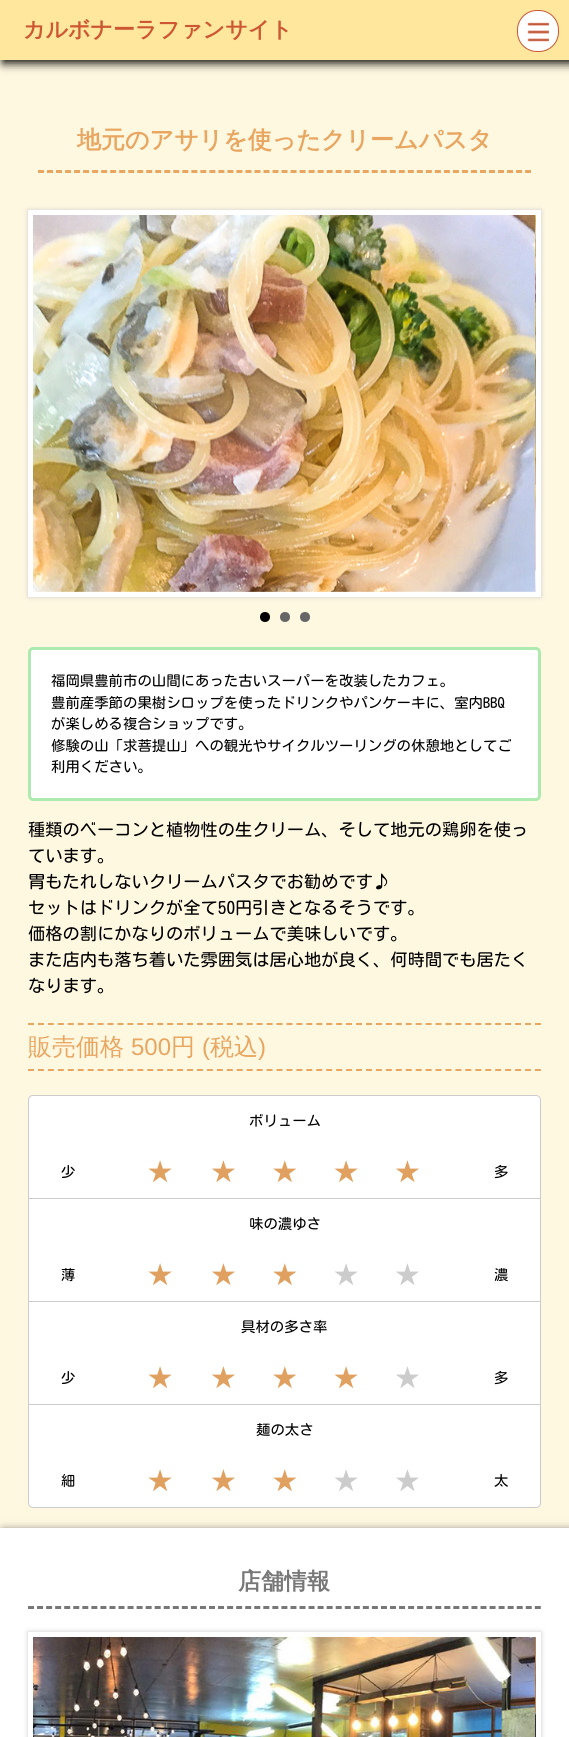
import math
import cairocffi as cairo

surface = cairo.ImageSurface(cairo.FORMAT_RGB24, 569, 1737)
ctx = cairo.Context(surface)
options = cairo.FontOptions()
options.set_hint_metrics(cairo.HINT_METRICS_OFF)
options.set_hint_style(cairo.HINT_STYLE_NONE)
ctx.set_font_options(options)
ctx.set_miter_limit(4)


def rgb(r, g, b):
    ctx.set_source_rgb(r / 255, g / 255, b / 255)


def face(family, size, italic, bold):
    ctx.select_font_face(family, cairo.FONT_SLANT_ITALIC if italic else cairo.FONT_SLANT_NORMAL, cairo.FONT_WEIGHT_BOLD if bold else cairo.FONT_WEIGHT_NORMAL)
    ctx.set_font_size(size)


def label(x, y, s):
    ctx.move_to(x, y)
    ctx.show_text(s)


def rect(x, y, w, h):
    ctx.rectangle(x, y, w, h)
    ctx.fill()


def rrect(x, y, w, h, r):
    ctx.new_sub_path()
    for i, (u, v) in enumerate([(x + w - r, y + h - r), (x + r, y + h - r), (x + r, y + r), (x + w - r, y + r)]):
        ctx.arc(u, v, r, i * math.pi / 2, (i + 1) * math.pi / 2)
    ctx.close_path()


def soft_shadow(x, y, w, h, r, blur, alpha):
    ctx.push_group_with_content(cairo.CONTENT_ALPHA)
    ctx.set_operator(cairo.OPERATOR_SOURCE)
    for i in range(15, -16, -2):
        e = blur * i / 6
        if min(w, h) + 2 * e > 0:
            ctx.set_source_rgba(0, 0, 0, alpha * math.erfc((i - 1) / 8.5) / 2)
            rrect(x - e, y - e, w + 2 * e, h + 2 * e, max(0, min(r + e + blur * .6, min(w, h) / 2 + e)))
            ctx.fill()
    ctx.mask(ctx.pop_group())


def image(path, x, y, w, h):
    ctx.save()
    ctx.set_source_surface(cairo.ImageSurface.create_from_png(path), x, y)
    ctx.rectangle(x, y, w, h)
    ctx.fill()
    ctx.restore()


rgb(255, 248, 225)
ctx.paint()
rgb(0, 0, 0)
soft_shadow(3, 3, 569, 60, 0, 5, 1)
rgb(255, 232, 158)
rect(0, 0, 569, 60)
face('WenQuanYi Zen Hei', 22, 0, 1)
rgb(205, 87, 50)
label(23, 37, 'カルボナーラファンサイト')
rgb(255, 255, 255)
rrect(517.5, 10.5, 41, 41, 19.5)
ctx.fill_preserve()
rgb(205, 87, 50)
ctx.set_line_width(1)
ctx.stroke()
image('image0.png', 527, 22, 22, 20)
ctx.new_path()
ctx.move_to(38, 171.5)
ctx.line_to(531, 171.5)
rgb(232, 166, 97)
ctx.set_line_width(3)
ctx.set_dash([6, 3.02])
ctx.stroke()
face('WenQuanYi Zen Hei', 24, 0, 1)
label(77, 148, '地元のアサリを使ったクリームパスタ')
rgb(204, 204, 204)
soft_shadow(28, 210, 513, 387, 0, 2.5, 1)
rgb(255, 255, 255)
rect(28, 210, 513, 387)
image('image1.png', 33, 215, 502, 377)
image('image2.png', 535, 215, 1, 377)
rgb(0, 0, 0)
ctx.arc(265, 617, 5, 0, 2 * math.pi)
ctx.fill()
rgb(102, 102, 102)
ctx.arc(285, 617, 5, 0, 2 * math.pi)
ctx.fill()
ctx.arc(305, 617, 5, 0, 2 * math.pi)
ctx.fill()
rgb(255, 255, 255)
rrect(29.5, 648.5, 510, 151, 3.5)
ctx.fill_preserve()
rgb(174, 234, 176)
ctx.set_dash([])
ctx.stroke()
face('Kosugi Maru', 14.4, 0, 0)
rgb(0, 0, 0)
label(51, 686, '福岡県豊前市の山間にあった古いスーパーを改装したカフェ。')
label(51, 708, '豊前産季節の果樹シロップを使ったドリンクやパンケーキに、室内BBQ')
label(51, 729, 'が楽しめる複合ショップです。')
label(51, 751, '修験の山「求菩提山」への観光やサイクルツーリングの休憩地としてご')
label(51, 772, '利用ください。')
face('Kosugi Maru', 17.25, 0, 0)
label(28, 836, '種類のベーコンと植物性の生クリーム、そして地元の鶏卵を使っ')
label(28, 862, 'ています。')
label(28, 888, '胃もたれしないクリームパスタでお勧めです♪')
label(28, 914, 'セットはドリンクが全て50円引きとなるそうです。')
label(28, 940, '価格の割にかなりのボリュームで美味しいです。')
label(28, 966, 'また店内も落ち着いた雰囲気は居心地が良く、何時間でも居たく')
label(28, 992, 'なります。')
ctx.new_path()
ctx.move_to(28, 1024)
ctx.line_to(541, 1024)
rgb(232, 166, 97)
ctx.set_line_width(2)
ctx.set_dash([6, 3.94])
ctx.stroke()
ctx.new_path()
ctx.move_to(28, 1070)
ctx.line_to(541, 1070)
ctx.stroke()
face('WenQuanYi Zen Hei Medium', 24, 0, 0)
label(28, 1055, '販売価格')
face('Liberation Sans', 24, 0, 0)
label(131, 1055, '500')
face('WenQuanYi Zen Hei Medium', 24, 0, 0)
label(171, 1055, '円')
face('Liberation Sans', 24, 0, 0)
label(202, 1055, '(')
face('WenQuanYi Zen Hei Medium', 24, 0, 0)
label(210, 1055, '税込')
face('Liberation Sans', 24, 0, 0)
label(258, 1055, ')')
rgb(255, 255, 255)
rrect(28.5, 1095.5, 512, 412, 4.5)
ctx.fill_preserve()
rgb(204, 204, 204)
ctx.set_line_width(1)
ctx.set_dash([])
ctx.stroke()
rect(29, 1198, 511, 1)
face('Kosugi Maru', 14.4, 0, 0)
rgb(0, 0, 0)
label(249, 1126, 'ボリューム')
label(61, 1177, '少')
rgb(224, 161, 96)
rect(148, 1160, 271, 23)
image('image3.png', 106, 1146, 357, 52)
rgb(0, 0, 0)
label(494, 1177, '多')
rgb(204, 204, 204)
rect(29, 1301, 511, 1)
rgb(0, 0, 0)
label(249, 1229, '味の濃ゆさ')
label(61, 1280, '薄')
rgb(204, 204, 204)
rect(334, 1263, 85, 23)
rgb(224, 161, 96)
rect(148, 1263, 149, 23)
image('image4.png', 106, 1249, 357, 52)
rgb(0, 0, 0)
label(494, 1280, '濃')
rgb(204, 204, 204)
rect(29, 1404, 511, 1)
rgb(0, 0, 0)
label(241, 1332, '具材の多さ率')
label(61, 1383, '少')
rgb(204, 204, 204)
rect(395, 1366, 24, 23)
rgb(224, 161, 96)
rect(148, 1366, 210, 23)
image('image5.png', 106, 1352, 357, 52)
rgb(0, 0, 0)
label(494, 1383, '多')
label(256, 1435, '麺の太さ')
label(61, 1486, '細')
rgb(204, 204, 204)
rect(334, 1469, 85, 23)
rgb(224, 161, 96)
rect(148, 1469, 149, 23)
image('image4.png', 106, 1455, 357, 52)
rgb(0, 0, 0)
label(494, 1486, '太')
rgb(80, 80, 80)
soft_shadow(3, 1531, 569, 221, 0, 5, 1)
rgb(255, 255, 255)
rect(0, 1528, 569, 209)
ctx.new_path()
ctx.move_to(28, 1607.5)
ctx.line_to(541, 1607.5)
rgb(119, 119, 119)
ctx.set_line_width(3)
ctx.set_dash([6, 3.05])
ctx.stroke()
face('WenQuanYi Zen Hei', 23, 0, 1)
label(238, 1589, '店舗情報')
ctx.save()
ctx.set_fill_rule(cairo.FILL_RULE_EVEN_ODD)
ctx.new_path()
ctx.move_to(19, 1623)
ctx.line_to(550, 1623)
ctx.line_to(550, 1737)
ctx.line_to(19, 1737)
ctx.close_path()
ctx.move_to(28, 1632)
ctx.line_to(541, 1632)
ctx.line_to(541, 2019)
ctx.line_to(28, 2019)
ctx.close_path()
ctx.clip()
rgb(204, 204, 204)
soft_shadow(28, 1632, 513, 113, 0, 2.5, 1)
ctx.restore()
image('image6.png', 33, 1637, 502, 100)
image('image7.png', 535, 1637, 1, 100)
surface.write_to_png('render.png')
